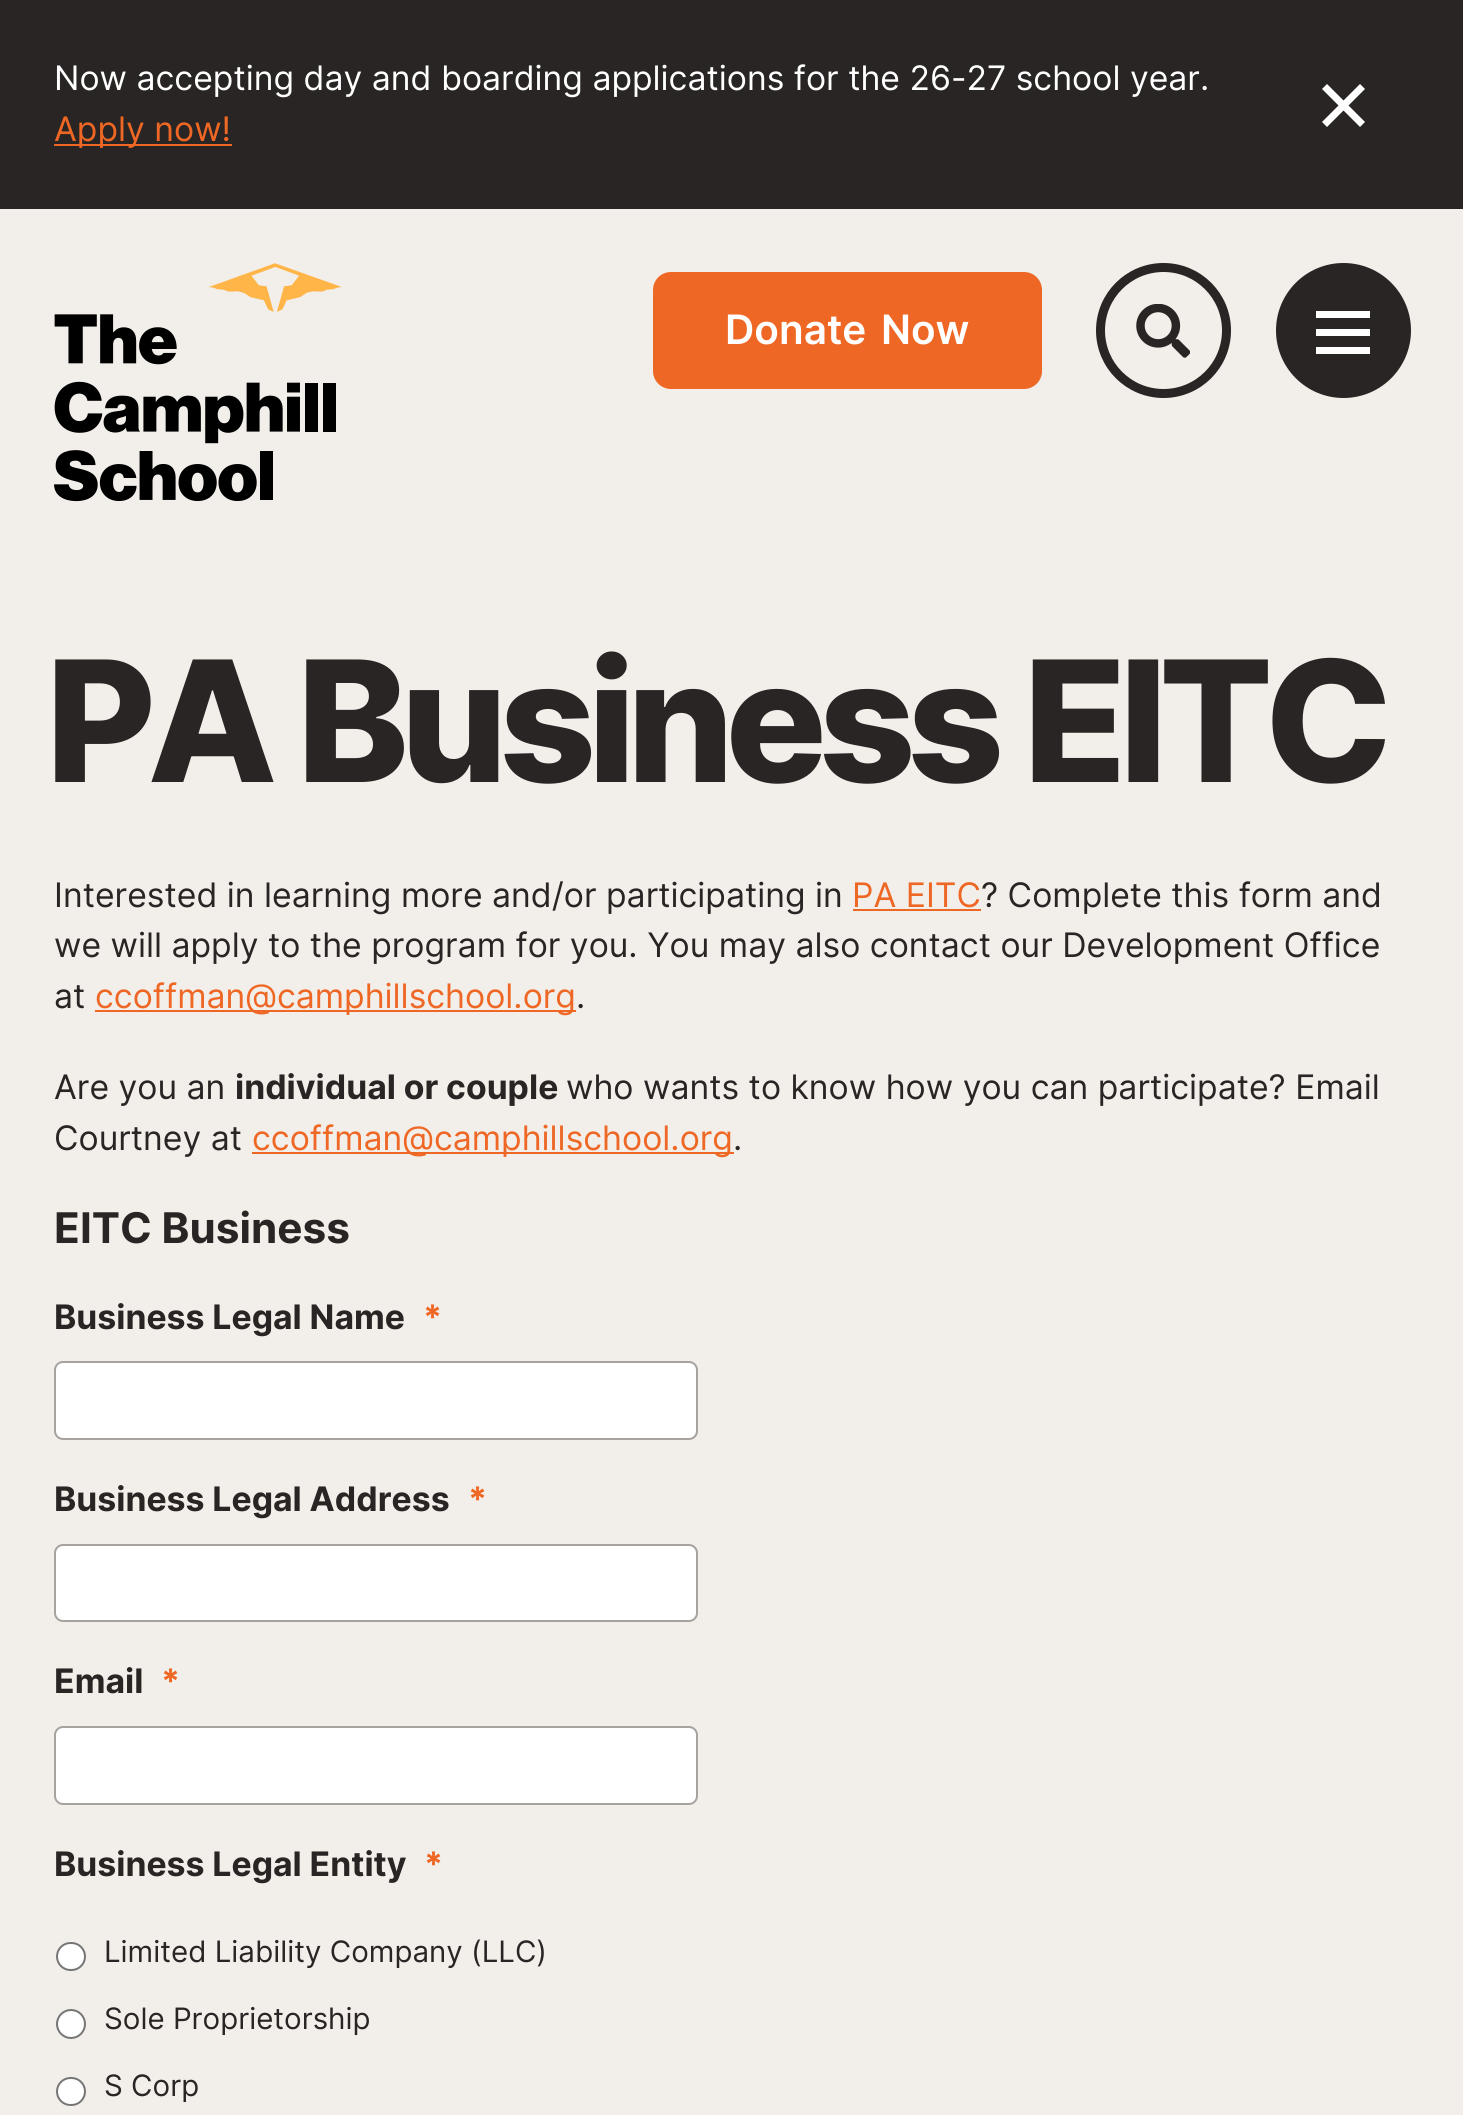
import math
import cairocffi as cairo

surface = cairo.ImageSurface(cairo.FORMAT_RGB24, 1463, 2115)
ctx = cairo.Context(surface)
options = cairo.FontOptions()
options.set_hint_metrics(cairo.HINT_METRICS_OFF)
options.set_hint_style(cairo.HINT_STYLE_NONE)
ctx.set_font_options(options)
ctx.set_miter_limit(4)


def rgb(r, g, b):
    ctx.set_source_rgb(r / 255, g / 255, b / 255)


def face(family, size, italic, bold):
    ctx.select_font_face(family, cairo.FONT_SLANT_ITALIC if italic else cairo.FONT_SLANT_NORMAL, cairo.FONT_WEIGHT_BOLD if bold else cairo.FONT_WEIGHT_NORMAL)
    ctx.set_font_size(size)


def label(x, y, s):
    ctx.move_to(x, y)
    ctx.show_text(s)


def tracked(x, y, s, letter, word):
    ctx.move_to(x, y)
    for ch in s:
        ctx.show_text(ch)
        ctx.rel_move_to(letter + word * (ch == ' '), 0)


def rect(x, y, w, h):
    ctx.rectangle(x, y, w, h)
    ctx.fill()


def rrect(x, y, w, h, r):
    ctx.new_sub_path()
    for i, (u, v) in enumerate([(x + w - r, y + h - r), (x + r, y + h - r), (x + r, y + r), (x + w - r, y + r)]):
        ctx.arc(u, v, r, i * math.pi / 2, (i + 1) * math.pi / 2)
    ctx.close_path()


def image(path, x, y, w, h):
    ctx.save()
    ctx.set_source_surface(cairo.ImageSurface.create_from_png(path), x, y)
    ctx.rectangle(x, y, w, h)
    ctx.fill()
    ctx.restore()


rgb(242, 238, 234)
ctx.paint()
rgb(41, 37, 36)
rect(0, 0, 1463, 209)
face('Inter', 33.75, 0, 0)
rgb(255, 255, 255)
label(54, 90, 'Now accepting day and boarding applications for the 26-27 school year.')
rgb(239, 103, 36)
rect(54, 144, 178, 2)
label(54, 141, 'Apply now!')
rgb(255, 255, 255)
ctx.new_path()
ctx.move_to(1327, 84)
ctx.line_to(1365, 122)
ctx.line_to(1360, 127)
ctx.line_to(1322, 89)
ctx.close_path()
ctx.fill()
ctx.new_path()
ctx.move_to(1322, 122)
ctx.line_to(1360, 84)
ctx.line_to(1365, 89)
ctx.line_to(1327, 127)
ctx.close_path()
ctx.fill()
image('image0.png', 54, 263, 288, 239)
rgb(239, 103, 36)
rrect(653, 272, 389, 117, 18)
ctx.fill()
face('Inter SemiBold', 40.5, 0, 0)
rgb(255, 255, 255)
label(725, 344, 'Donate')
label(881, 344, 'Now')
ctx.new_path()
ctx.arc(1163.5, 330.5, 63, 0, 2 * math.pi)
rgb(41, 37, 36)
ctx.set_line_width(9)
ctx.stroke()
image('image1.png', 1136, 304, 54, 54)
ctx.arc(1343.5, 330.5, 67.5, 0, 2 * math.pi)
ctx.fill()
rgb(255, 255, 255)
rect(1316, 311, 54, 7)
rect(1316, 329, 54, 7)
rect(1316, 347, 54, 7)
face('Inter ExtraBold', 168.5, 0, 0)
rgb(41, 37, 36)
tracked(46, 782, 'PA Business EITC', -8.4, 0)
face('Inter', 33.75, 0, 0)
label(54, 907, 'Interested in learning more and/or participating in')
rgb(239, 103, 36)
label(852, 907, 'PA EITC')
rect(853, 909, 128, 2)
rgb(41, 37, 36)
label(981, 907, '? Complete this form and')
label(54, 957, 'we will apply to the program for you. You may also contact our Development Office')
label(54, 1008, 'at')
rgb(239, 103, 36)
rect(95, 1010, 481, 2)
label(95, 1008, 'ccoffman@camphillschool.org')
rgb(41, 37, 36)
label(576, 1008, '.')
label(54, 1099, 'Are you an')
face('Inter', 33.75, 0, 1)
label(235, 1099, 'individual or couple')
face('Inter', 33.75, 0, 0)
label(566, 1099, 'who wants to know how you can participate? Email')
label(54, 1150, 'Courtney at')
rgb(239, 103, 36)
rect(252, 1152, 482, 2)
label(252, 1150, 'ccoffman@camphillschool.org')
rgb(41, 37, 36)
label(733, 1150, '.')
face('Inter', 42.25, 0, 1)
label(54, 1243, 'EITC Business')
face('Inter', 33.75, 0, 1)
label(54, 1329, 'Business Legal Name')
rgb(239, 103, 36)
label(423, 1329, '*')
rgb(255, 255, 255)
rrect(55, 1362, 642, 77, 8)
ctx.fill_preserve()
rgb(168, 162, 158)
ctx.set_line_width(2)
ctx.stroke()
rgb(41, 37, 36)
label(54, 1511, 'Business Legal Address')
rgb(239, 103, 36)
label(468, 1511, '*')
rgb(255, 255, 255)
rrect(55, 1545, 642, 76, 8)
ctx.fill_preserve()
rgb(168, 162, 158)
ctx.stroke()
rgb(41, 37, 36)
label(54, 1693, 'Email')
rgb(239, 103, 36)
label(161, 1693, '*')
rgb(255, 255, 255)
rrect(55, 1727, 642, 77, 8)
ctx.fill_preserve()
rgb(168, 162, 158)
ctx.stroke()
rgb(41, 37, 36)
label(54, 1876, 'Business Legal Entity')
rgb(239, 103, 36)
label(424, 1876, '*')
rgb(255, 255, 255)
rrect(57, 1943, 28, 27, 13.5)
ctx.fill_preserve()
rgb(118, 118, 118)
ctx.stroke()
face('Inter', 29.5, 0, 0)
rgb(41, 37, 36)
label(104, 1962, 'Limited Liability Company (LLC)')
rgb(255, 255, 255)
ctx.new_path()
ctx.arc(71, 2024, 14, 0, 2 * math.pi)
ctx.fill_preserve()
rgb(118, 118, 118)
ctx.stroke()
rgb(41, 37, 36)
label(104, 2029, 'Sole Proprietorship')
rgb(255, 255, 255)
rrect(57, 2078, 28, 27, 13.5)
ctx.fill_preserve()
rgb(118, 118, 118)
ctx.stroke()
rgb(41, 37, 36)
label(104, 2096, 'S Corp')
surface.write_to_png('render.png')
